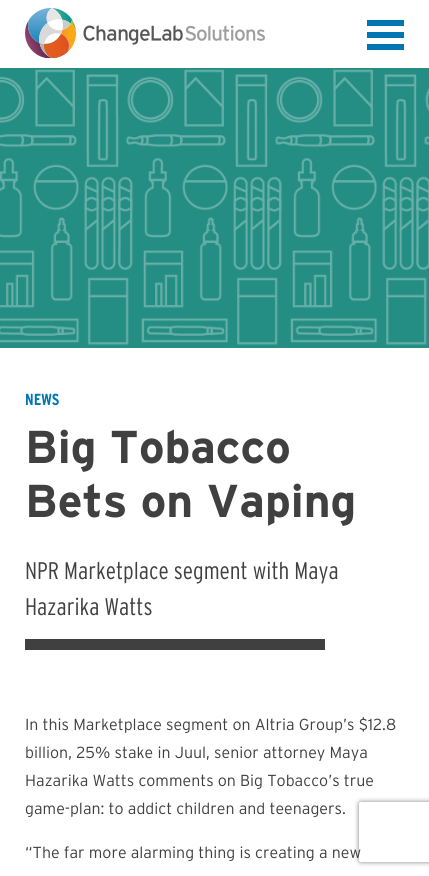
import math
import cairocffi as cairo

surface = cairo.ImageSurface(cairo.FORMAT_RGB24, 429, 876)
ctx = cairo.Context(surface)
options = cairo.FontOptions()
options.set_hint_metrics(cairo.HINT_METRICS_OFF)
options.set_hint_style(cairo.HINT_STYLE_NONE)
ctx.set_font_options(options)
ctx.set_miter_limit(4)


def rgb(r, g, b):
    ctx.set_source_rgb(r / 255, g / 255, b / 255)


def face(family, size, italic, bold):
    ctx.select_font_face(family, cairo.FONT_SLANT_ITALIC if italic else cairo.FONT_SLANT_NORMAL, cairo.FONT_WEIGHT_BOLD if bold else cairo.FONT_WEIGHT_NORMAL)
    ctx.set_font_size(size)


def label(x, y, s):
    ctx.move_to(x, y)
    ctx.show_text(s)


def rect(x, y, w, h):
    ctx.rectangle(x, y, w, h)
    ctx.fill()


def rrect(x, y, w, h, r):
    ctx.new_sub_path()
    for i, (u, v) in enumerate([(x + w - r, y + h - r), (x + r, y + h - r), (x + r, y + r), (x + w - r, y + r)]):
        ctx.arc(u, v, r, i * math.pi / 2, (i + 1) * math.pi / 2)
    ctx.close_path()


def soft_shadow(x, y, w, h, r, blur, alpha):
    ctx.push_group_with_content(cairo.CONTENT_ALPHA)
    ctx.set_operator(cairo.OPERATOR_SOURCE)
    for i in range(15, -16, -2):
        e = blur * i / 6
        if min(w, h) + 2 * e > 0:
            ctx.set_source_rgba(0, 0, 0, alpha * math.erfc((i - 1) / 8.5) / 2)
            rrect(x - e, y - e, w + 2 * e, h + 2 * e, max(0, min(r + e + blur * .6, min(w, h) / 2 + e)))
            ctx.fill()
    ctx.mask(ctx.pop_group())


def image(path, x, y, w, h):
    ctx.save()
    ctx.set_source_surface(cairo.ImageSurface.create_from_png(path), x, y)
    ctx.rectangle(x, y, w, h)
    ctx.fill()
    ctx.restore()


rgb(255, 255, 255)
ctx.paint()
image('image0.png', 25, 8, 240, 50)
rgb(1, 118, 179)
rect(367, 32, 37, 6)
rect(367, 20, 37, 6)
rect(367, 44, 37, 6)
image('image1.png', 0, 68, 429, 280)
face('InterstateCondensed', 16, 0, 1)
label(25, 405, 'NEWS')
face('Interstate', 46, 0, 1)
rgb(64, 64, 64)
label(25, 463, 'Big Tobacco')
label(25, 517, 'Bets on Vaping')
rect(25, 639, 300, 11)
face('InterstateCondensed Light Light', 24, 0, 0)
label(25, 579, 'NPR Marketplace segment with Maya')
label(25, 615, 'Hazarika Watts')
face('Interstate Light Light', 16, 0, 0)
label(25, 730, 'In this Marketplace segment on Altria Group’s $12.8')
label(25, 758, 'billion, 25% stake in Juul, senior attorney Maya')
label(25, 786, 'Hazarika Watts comments on Big Tobacco’s true')
label(25, 814, 'game-plan: to addict children and teenagers.')
ctx.save()
ctx.set_fill_rule(cairo.FILL_RULE_EVEN_ODD)
ctx.new_path()
ctx.move_to(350, 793)
ctx.line_to(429, 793)
ctx.line_to(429, 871)
ctx.line_to(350, 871)
ctx.close_path()
ctx.move_to(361, 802)
ctx.line_to(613, 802)
ctx.curve_to(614, 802, 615, 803, 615, 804)
ctx.line_to(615, 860)
ctx.curve_to(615, 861, 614, 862, 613, 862)
ctx.line_to(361, 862)
ctx.curve_to(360, 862, 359, 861, 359, 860)
ctx.line_to(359, 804)
ctx.curve_to(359, 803, 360, 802, 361, 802)
ctx.close_path()
ctx.clip()
rgb(128, 128, 128)
soft_shadow(359, 802, 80, 60, 2, 2.5, 1)
ctx.restore()
label(25, 858, '“The far more alarming thing is creating a new')
surface.write_to_png('render.png')
